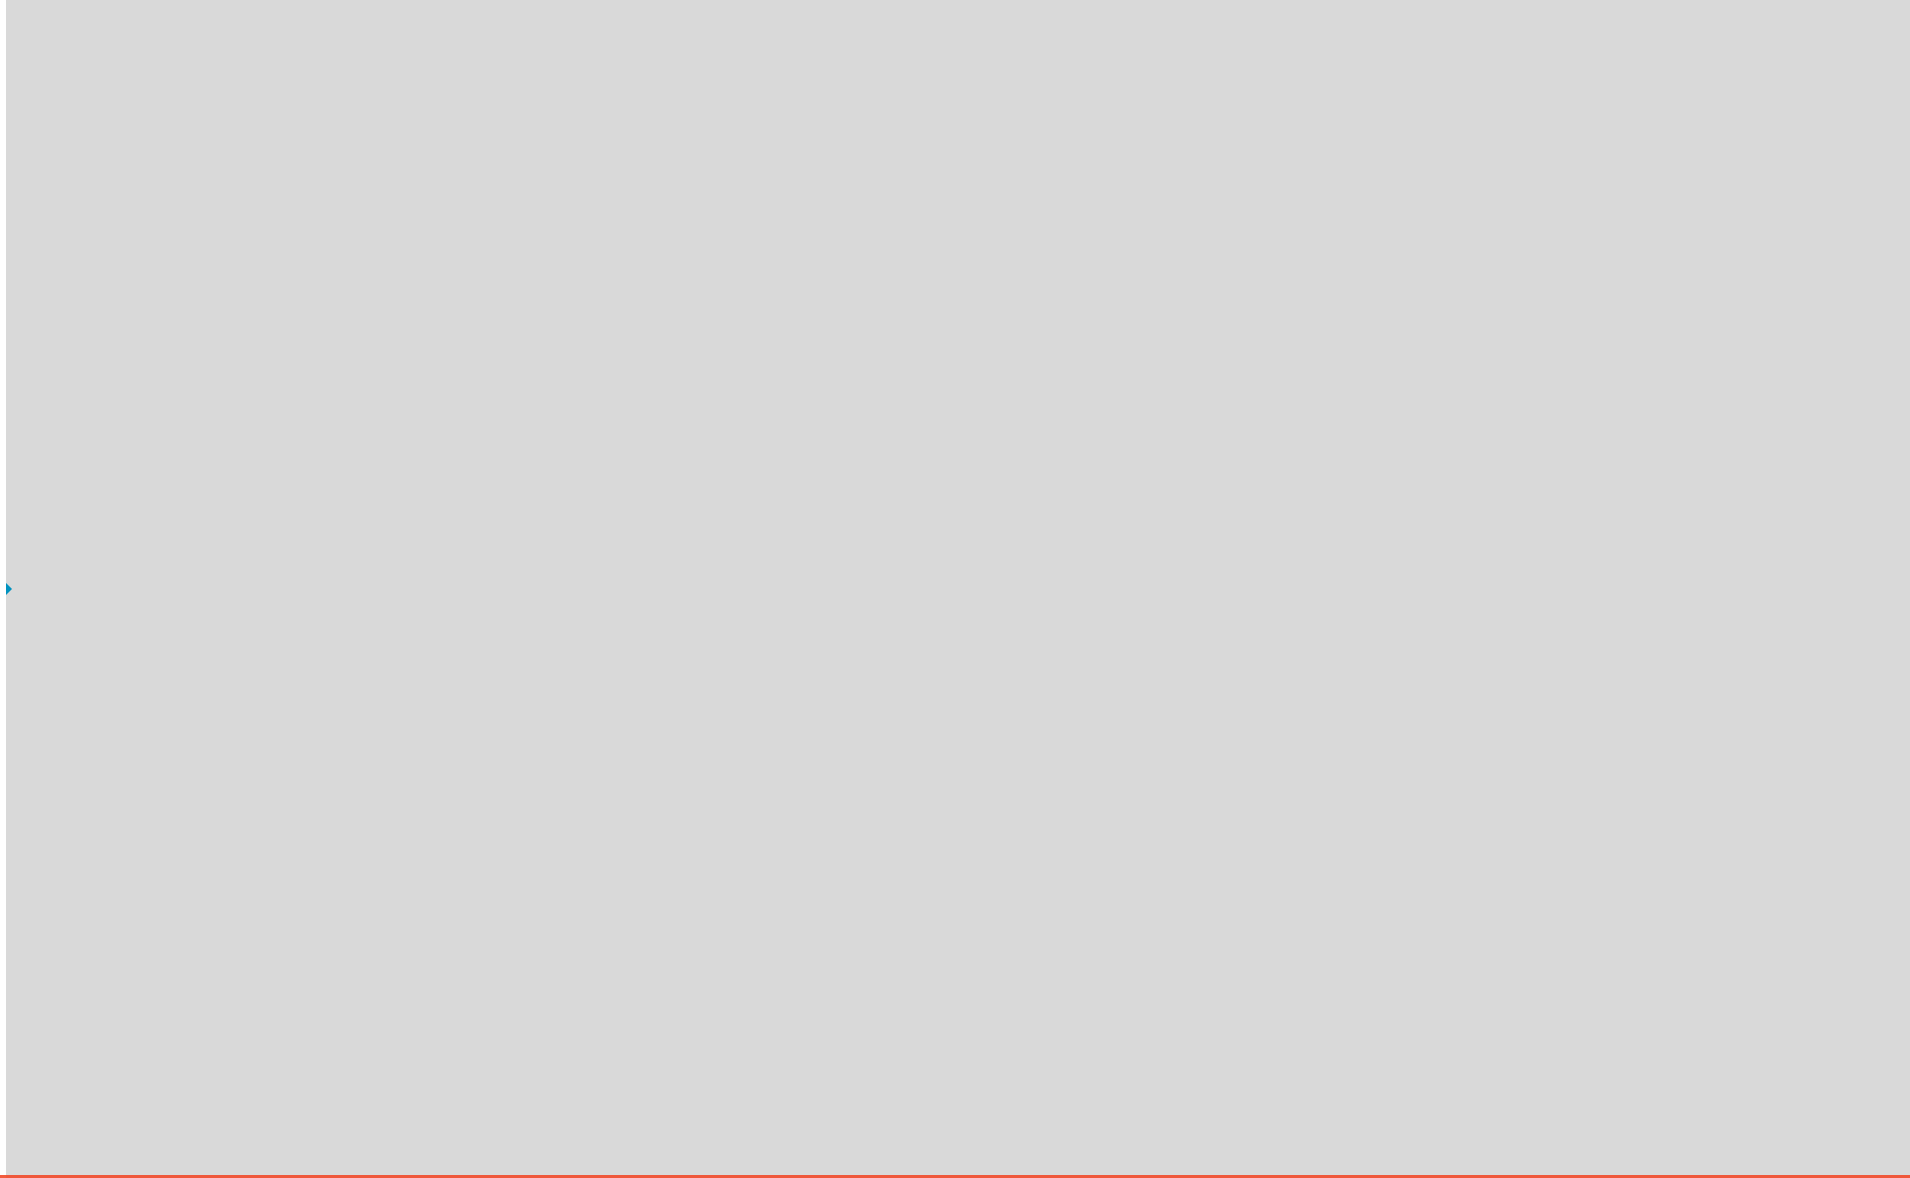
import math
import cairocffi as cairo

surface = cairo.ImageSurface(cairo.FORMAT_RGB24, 1910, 1178)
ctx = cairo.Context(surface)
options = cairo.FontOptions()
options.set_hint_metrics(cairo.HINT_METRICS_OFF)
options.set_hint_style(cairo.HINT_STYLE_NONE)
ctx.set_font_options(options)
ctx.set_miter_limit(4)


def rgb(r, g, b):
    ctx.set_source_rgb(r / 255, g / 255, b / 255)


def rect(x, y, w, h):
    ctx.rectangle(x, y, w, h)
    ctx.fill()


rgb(217, 217, 217)
ctx.paint()
rgb(239, 88, 59)
rect(0, 1175, 1910, 3)
rgb(0, 146, 191)
ctx.new_path()
ctx.move_to(0, 601)
ctx.line_to(0, 577)
ctx.line_to(12, 589)
ctx.close_path()
ctx.fill()
rgb(255, 255, 255)
rect(0, 0, 6, 1178)
rgb(242, 92, 62)
rect(0, 1175, 6, 3)
surface.write_to_png('render.png')
